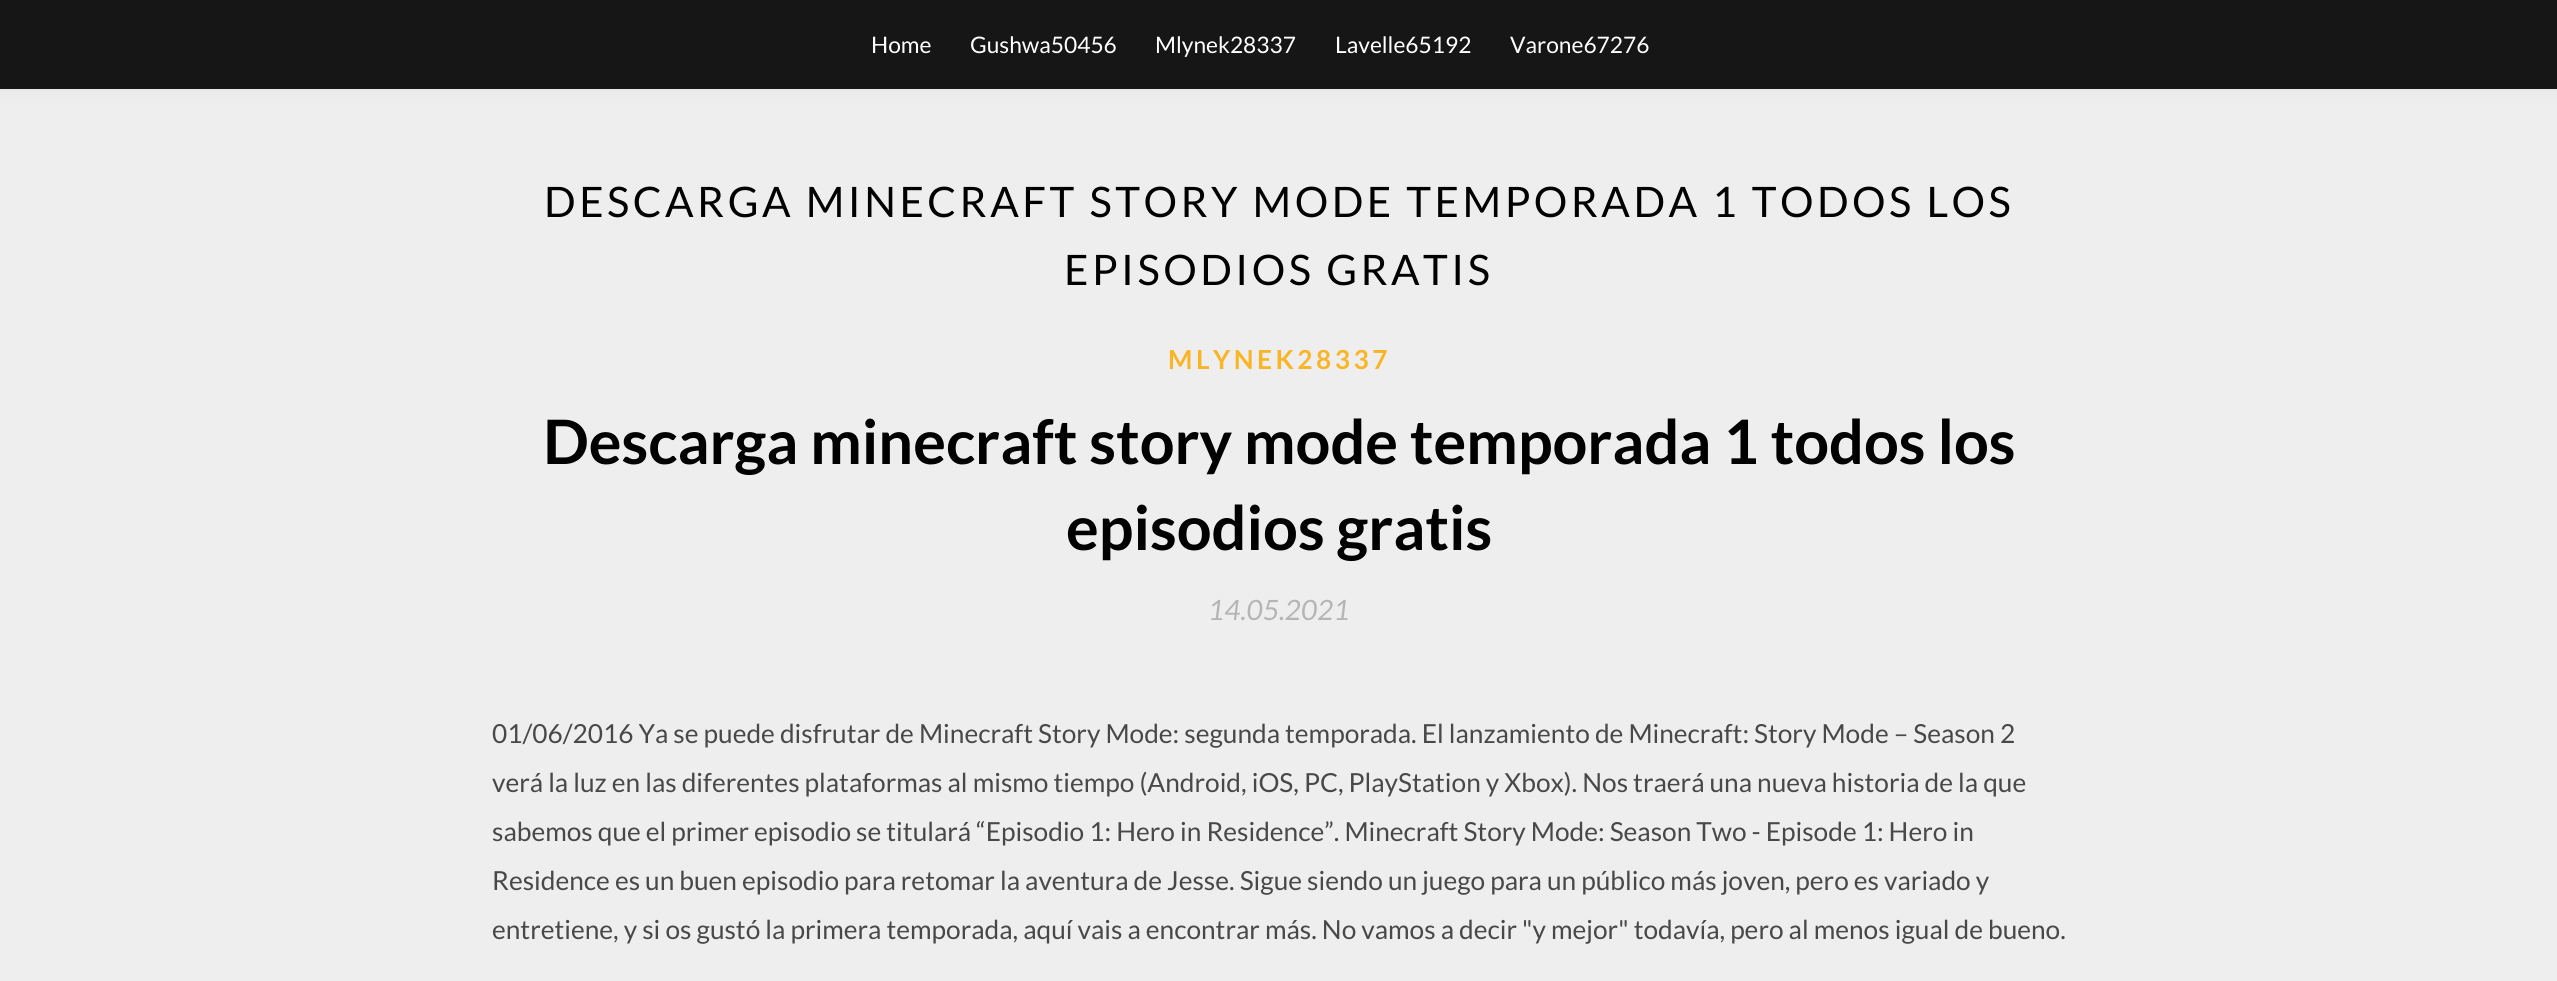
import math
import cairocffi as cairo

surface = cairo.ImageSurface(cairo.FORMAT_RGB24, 2557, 981)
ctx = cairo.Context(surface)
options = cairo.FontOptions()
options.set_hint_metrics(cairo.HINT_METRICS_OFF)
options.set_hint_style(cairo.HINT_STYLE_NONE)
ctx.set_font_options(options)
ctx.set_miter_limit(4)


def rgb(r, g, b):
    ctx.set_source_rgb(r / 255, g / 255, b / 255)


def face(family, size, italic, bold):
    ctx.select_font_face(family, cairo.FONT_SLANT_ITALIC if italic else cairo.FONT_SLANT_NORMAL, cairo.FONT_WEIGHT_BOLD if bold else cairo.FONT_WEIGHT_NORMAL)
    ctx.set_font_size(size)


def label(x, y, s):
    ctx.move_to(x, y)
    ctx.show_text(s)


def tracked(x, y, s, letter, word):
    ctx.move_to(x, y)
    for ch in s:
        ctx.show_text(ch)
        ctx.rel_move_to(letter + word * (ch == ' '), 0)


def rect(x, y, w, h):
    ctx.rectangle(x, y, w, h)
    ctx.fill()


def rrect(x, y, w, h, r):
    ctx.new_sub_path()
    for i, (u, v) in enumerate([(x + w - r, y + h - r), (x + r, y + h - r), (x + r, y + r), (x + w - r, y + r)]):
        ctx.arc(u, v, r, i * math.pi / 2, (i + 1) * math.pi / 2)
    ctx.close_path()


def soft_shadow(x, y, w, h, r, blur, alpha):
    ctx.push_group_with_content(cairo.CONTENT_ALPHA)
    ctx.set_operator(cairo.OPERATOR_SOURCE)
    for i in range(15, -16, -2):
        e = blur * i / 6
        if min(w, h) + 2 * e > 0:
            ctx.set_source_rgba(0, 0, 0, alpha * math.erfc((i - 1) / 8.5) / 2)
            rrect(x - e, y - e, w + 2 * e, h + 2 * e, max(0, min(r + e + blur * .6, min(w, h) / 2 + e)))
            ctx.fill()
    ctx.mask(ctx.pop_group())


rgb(238, 238, 238)
ctx.paint()
rgb(0, 0, 0)
soft_shadow(0, 0, 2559, 89, 0, 9, 0.05)
rgb(23, 22, 22)
rect(0, 0, 2557, 89)
face('Lato', 22.75, 0, 0)
rgb(255, 255, 255)
label(871, 53, 'Home')
label(970, 53, 'Gushwa50456')
label(1155, 53, 'Mlynek28337')
label(1335, 53, 'Lavelle65192')
label(1510, 53, 'Varone67276')
face('Lato', 42, 0, 0)
rgb(0, 0, 0)
tracked(544, 217, 'DESCARGA MINECRAFT STORY MODE TEMPORADA 1 TODOS LOS', 3.5, 0)
tracked(1064, 285, 'EPISODIOS GRATIS', 3.5, 0)
face('Lato', 26.25, 0, 1)
rgb(250, 181, 38)
tracked(1168, 369, 'MLYNEK28337', 3.5, 0)
face('Lato', 61.25, 0, 1)
rgb(0, 0, 0)
label(543, 464, 'Descarga minecraft story mode temporada 1 todos los')
label(1066, 550, 'episodios gratis')
face('Lato', 28, 1, 0)
rgb(181, 181, 181)
label(1208, 620, '14.05.2021')
face('Lato', 26.25, 0, 0)
rgb(72, 72, 72)
label(492, 743, '01/06/2016 Ya se puede disfrutar de Minecraft Story Mode: segunda temporada. El lanzamiento de Minecraft: Story Mode – Season 2')
label(492, 792, 'verá la luz en las diferentes plataformas al mismo tiempo (Android, iOS, PC, PlayStation y Xbox). Nos traerá una nueva historia de la que')
label(492, 841, 'sabemos que el primer episodio se titulará “Episodio 1: Hero in Residence”. Minecraft Story Mode: Season Two - Episode 1: Hero in')
label(492, 890, 'Residence es un buen episodio para retomar la aventura de Jesse. Sigue siendo un juego para un público más joven, pero es variado y')
label(492, 939, 'entretiene, y si os gustó la primera temporada, aquí vais a encontrar más. No vamos a decir "y mejor" todavía, pero al menos igual de bueno.')
surface.write_to_png('render.png')
